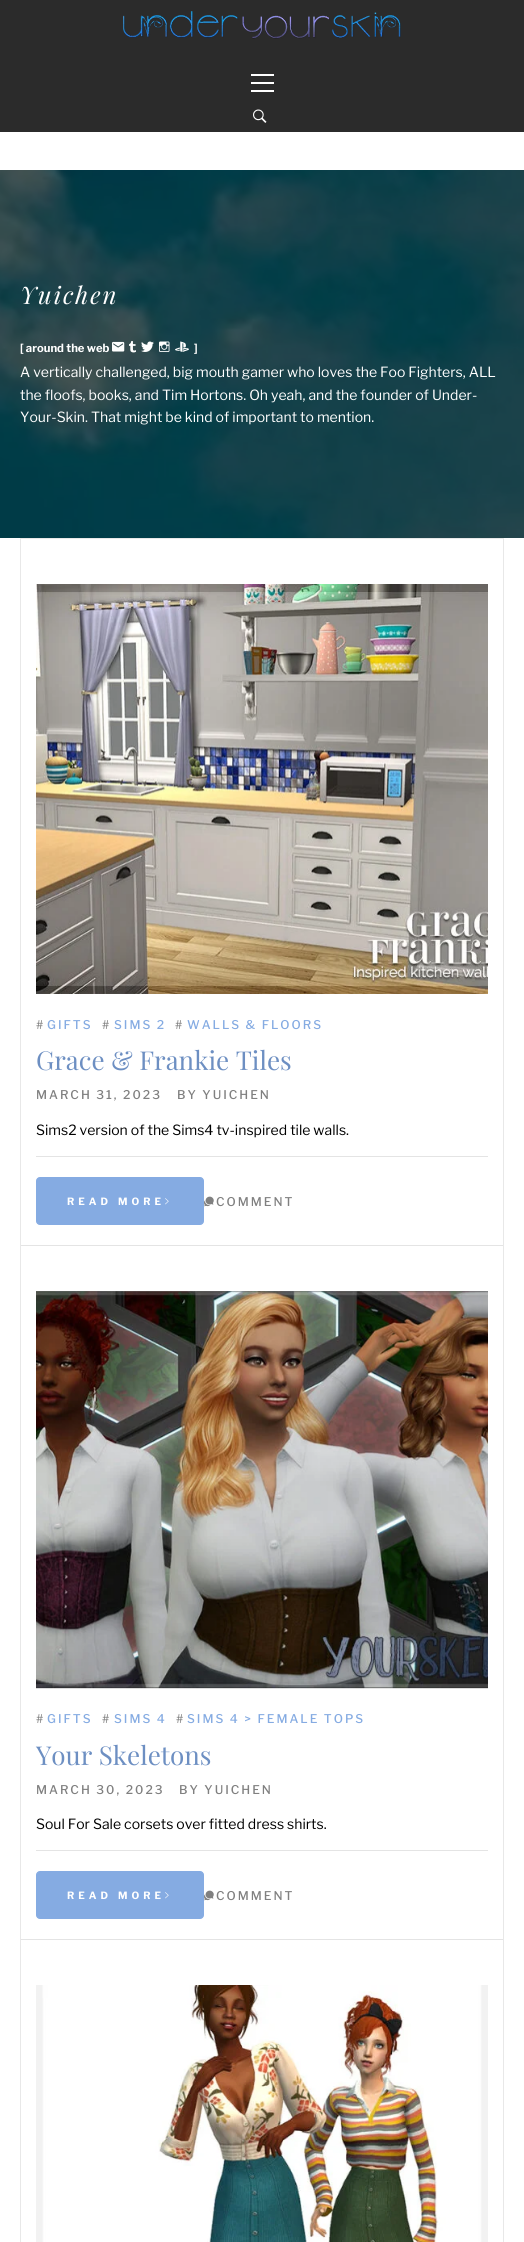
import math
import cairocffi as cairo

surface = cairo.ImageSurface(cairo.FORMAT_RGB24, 524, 2242)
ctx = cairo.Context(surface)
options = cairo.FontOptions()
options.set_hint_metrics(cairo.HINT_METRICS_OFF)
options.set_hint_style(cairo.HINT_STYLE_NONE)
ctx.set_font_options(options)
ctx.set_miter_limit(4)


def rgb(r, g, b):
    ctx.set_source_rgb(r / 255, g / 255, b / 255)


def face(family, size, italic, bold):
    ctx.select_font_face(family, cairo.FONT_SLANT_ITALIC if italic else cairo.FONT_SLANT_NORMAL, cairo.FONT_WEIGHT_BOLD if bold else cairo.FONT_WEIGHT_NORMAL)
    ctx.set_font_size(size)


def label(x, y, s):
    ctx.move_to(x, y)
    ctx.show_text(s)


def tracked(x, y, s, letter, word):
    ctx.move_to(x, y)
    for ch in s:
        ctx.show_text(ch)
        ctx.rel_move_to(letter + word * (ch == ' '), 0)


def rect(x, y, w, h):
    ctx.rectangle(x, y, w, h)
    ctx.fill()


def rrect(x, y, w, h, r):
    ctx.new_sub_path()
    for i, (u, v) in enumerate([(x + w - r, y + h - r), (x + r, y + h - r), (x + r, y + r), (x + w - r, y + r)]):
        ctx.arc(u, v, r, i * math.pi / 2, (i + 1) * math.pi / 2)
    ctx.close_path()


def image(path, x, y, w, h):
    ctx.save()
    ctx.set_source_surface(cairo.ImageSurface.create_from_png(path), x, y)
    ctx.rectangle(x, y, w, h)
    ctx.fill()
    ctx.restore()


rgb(255, 255, 255)
ctx.paint()
rgb(43, 43, 43)
rect(0, 0, 524, 132)
image('image0.png', 123, 11, 278, 28)
rgb(255, 255, 255)
rect(251, 82, 23, 2)
rect(251, 74, 23, 2)
rect(251, 90, 23, 2)
image('image1.png', 253, 109, 14, 14)
image('image2.png', 0, 170, 524, 368)
face('Playfair Display', 24, 1, 0)
tracked(20, 304, 'Yuichen', 2, 0)
face('Libre Franklin', 11.25, 0, 1)
label(20, 352, '[ around the web')
image('image3.png', 112, 341, 13, 11)
image('image4.png', 129, 341, 7, 12)
image('image5.png', 141, 341, 13, 11)
image('image6.png', 159, 341, 11, 11)
image('image7.png', 175, 341, 14, 11)
label(194, 352, ']')
face('Libre Franklin', 14, 0, 0)
label(20, 377, 'A vertically challenged, big mouth gamer who loves the Foo Fighters, ALL')
label(20, 400, 'the floofs, books, and Tim Hortons. Oh yeah, and the founder of Under-')
label(20, 422, 'Your-Skin. That might be kind of important to mention.')
ctx.rectangle(20.5, 538.5, 483, 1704)
rgb(232, 232, 232)
ctx.set_line_width(1)
ctx.stroke()
rgb(228, 228, 228)
rect(21, 1245, 482, 1)
image('image8.png', 36, 584, 452, 410)
face('Libre Franklin Medium', 12, 0, 0)
rgb(128, 128, 128)
tracked(36, 1029, '#', 2, 0)
rgb(133, 171, 226)
tracked(47, 1029, 'GIFTS', 2, 0)
rgb(128, 128, 128)
tracked(102, 1029, '#', 2, 0)
rgb(133, 171, 226)
tracked(114, 1029, 'SIMS 2', 2, 0)
rgb(128, 128, 128)
tracked(175, 1029, '#', 2, 0)
rgb(133, 171, 226)
tracked(187, 1029, 'WALLS & FLOORS', 2, 0)
face('Playfair Display', 26, 0, 0)
rgb(109, 143, 194)
label(36, 1070, 'Grace & Frankie Tiles')
face('Libre Franklin Medium', 12, 0, 0)
rgb(128, 128, 128)
tracked(36, 1099, 'MARCH 31, 2023', 2, 0)
tracked(177, 1099, 'BY YUICHEN', 2, 0)
rgb(228, 228, 228)
rect(36, 1156, 452, 1)
face('Libre Franklin', 14, 0, 0)
rgb(0, 0, 0)
label(36, 1135, 'Sims2 version of the Sims4 tv-inspired tile walls.')
rgb(133, 171, 226)
rrect(36.5, 1177.5, 167, 47, 3.5)
ctx.fill_preserve()
ctx.stroke()
face('Libre Franklin', 10, 0, 1)
rgb(255, 255, 255)
tracked(67, 1205, 'READ MORE', 4, 0)
image('image9.png', 165, 1198, 4, 7)
image('image10.png', 204, 1196, 10, 11)
face('Libre Franklin Medium', 12, 0, 0)
rgb(128, 128, 128)
tracked(216, 1206, 'COMMENT', 2, 0)
rgb(228, 228, 228)
rect(21, 1939, 482, 1)
image('image11.png', 36, 1291, 452, 398)
rgb(128, 128, 128)
tracked(36, 1723, '#', 2, 0)
rgb(133, 171, 226)
tracked(47, 1723, 'GIFTS', 2, 0)
rgb(128, 128, 128)
tracked(102, 1723, '#', 2, 0)
rgb(133, 171, 226)
tracked(114, 1723, 'SIMS 4', 2, 0)
rgb(128, 128, 128)
tracked(176, 1723, '#', 2, 0)
rgb(133, 171, 226)
tracked(187, 1723, 'SIMS 4 > FEMALE TOPS', 2, 0)
face('Playfair Display', 26, 0, 0)
rgb(109, 143, 194)
label(36, 1765, 'Your Skeletons')
face('Libre Franklin Medium', 12, 0, 0)
rgb(128, 128, 128)
tracked(36, 1794, 'MARCH 30, 2023', 2, 0)
tracked(179, 1794, 'BY YUICHEN', 2, 0)
rgb(228, 228, 228)
rect(36, 1850, 452, 1)
face('Libre Franklin', 14, 0, 0)
rgb(0, 0, 0)
label(36, 1829, 'Soul For Sale corsets over fitted dress shirts.')
rgb(133, 171, 226)
rrect(36.5, 1871.5, 167, 47, 3.5)
ctx.fill_preserve()
ctx.stroke()
face('Libre Franklin', 10, 0, 1)
rgb(255, 255, 255)
tracked(67, 1899, 'READ MORE', 4, 0)
image('image9.png', 165, 1892, 4, 7)
image('image10.png', 204, 1890, 10, 11)
face('Libre Franklin Medium', 12, 0, 0)
rgb(128, 128, 128)
tracked(216, 1900, 'COMMENT', 2, 0)
image('image12.png', 36, 1985, 452, 257)
surface.write_to_png('render.png')
